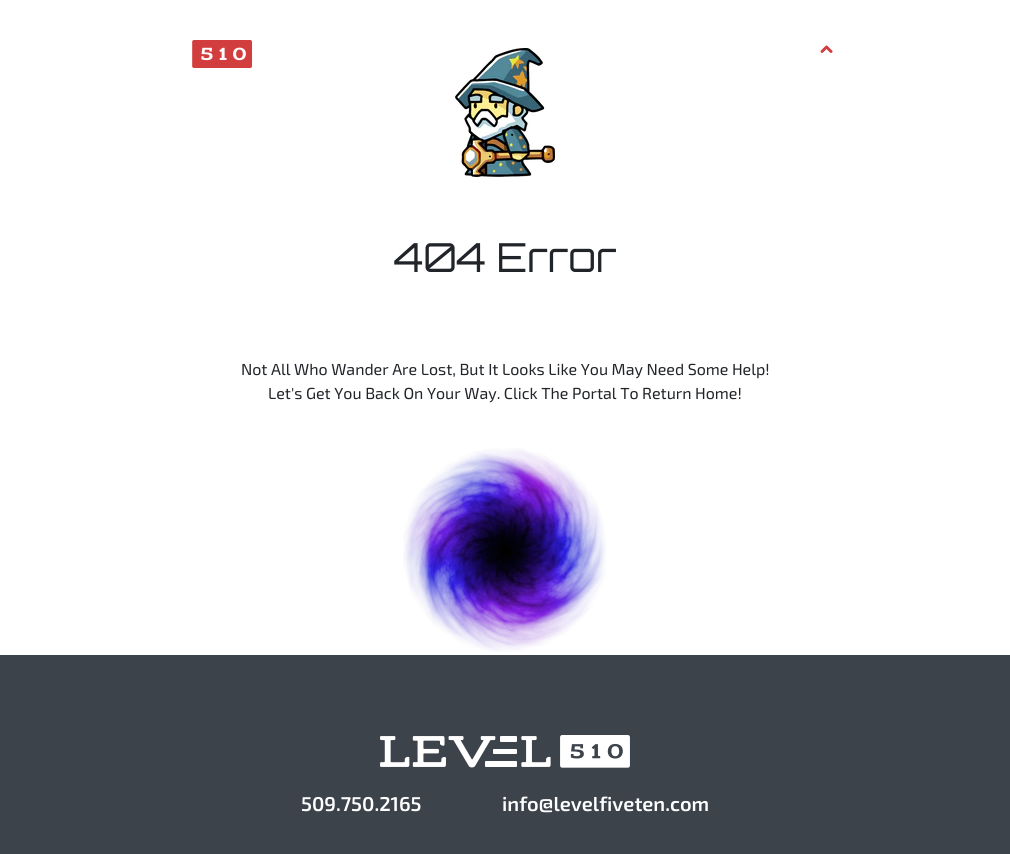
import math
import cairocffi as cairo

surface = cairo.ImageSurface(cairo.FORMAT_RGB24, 1010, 854)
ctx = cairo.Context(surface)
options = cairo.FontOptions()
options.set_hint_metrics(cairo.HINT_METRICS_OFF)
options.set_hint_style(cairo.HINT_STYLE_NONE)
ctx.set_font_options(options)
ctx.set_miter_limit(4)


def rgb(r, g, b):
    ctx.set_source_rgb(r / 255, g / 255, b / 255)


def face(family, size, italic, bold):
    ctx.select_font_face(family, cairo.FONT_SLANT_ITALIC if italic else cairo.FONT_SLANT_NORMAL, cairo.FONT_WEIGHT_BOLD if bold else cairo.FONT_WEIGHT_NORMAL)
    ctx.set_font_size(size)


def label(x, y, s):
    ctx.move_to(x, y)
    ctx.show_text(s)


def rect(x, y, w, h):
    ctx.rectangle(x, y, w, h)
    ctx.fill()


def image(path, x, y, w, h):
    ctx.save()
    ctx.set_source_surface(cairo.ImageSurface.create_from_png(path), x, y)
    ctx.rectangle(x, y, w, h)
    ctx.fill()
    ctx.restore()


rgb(255, 255, 255)
ctx.paint()
image('image0.png', 192, 40, 61, 28)
image('image1.png', 820, 45, 13, 8)
image('image2.png', 455, 48, 100, 129)
face('Orbitron', 40, 0, 0)
rgb(33, 37, 41)
label(394, 272, '404 Error')
face('Exo 2', 16, 0, 0)
label(241, 375, 'Not All Who Wander Are Lost, But It Looks Like You May Need Some Help!')
label(268, 399, 'Let\'s Get You Back On Your Way. Click The Portal To Return Home!')
image('image3.png', 403, 448, 203, 204)
rgb(61, 67, 75)
rect(0, 655, 1010, 199)
image('image4.png', 380, 735, 250, 33)
face('Exo 2 SemiBold', 20, 0, 0)
rgb(255, 255, 255)
label(301, 811, '509.750.2165')
label(502, 811, 'info@levelfiveten.com')
surface.write_to_png('render.png')
